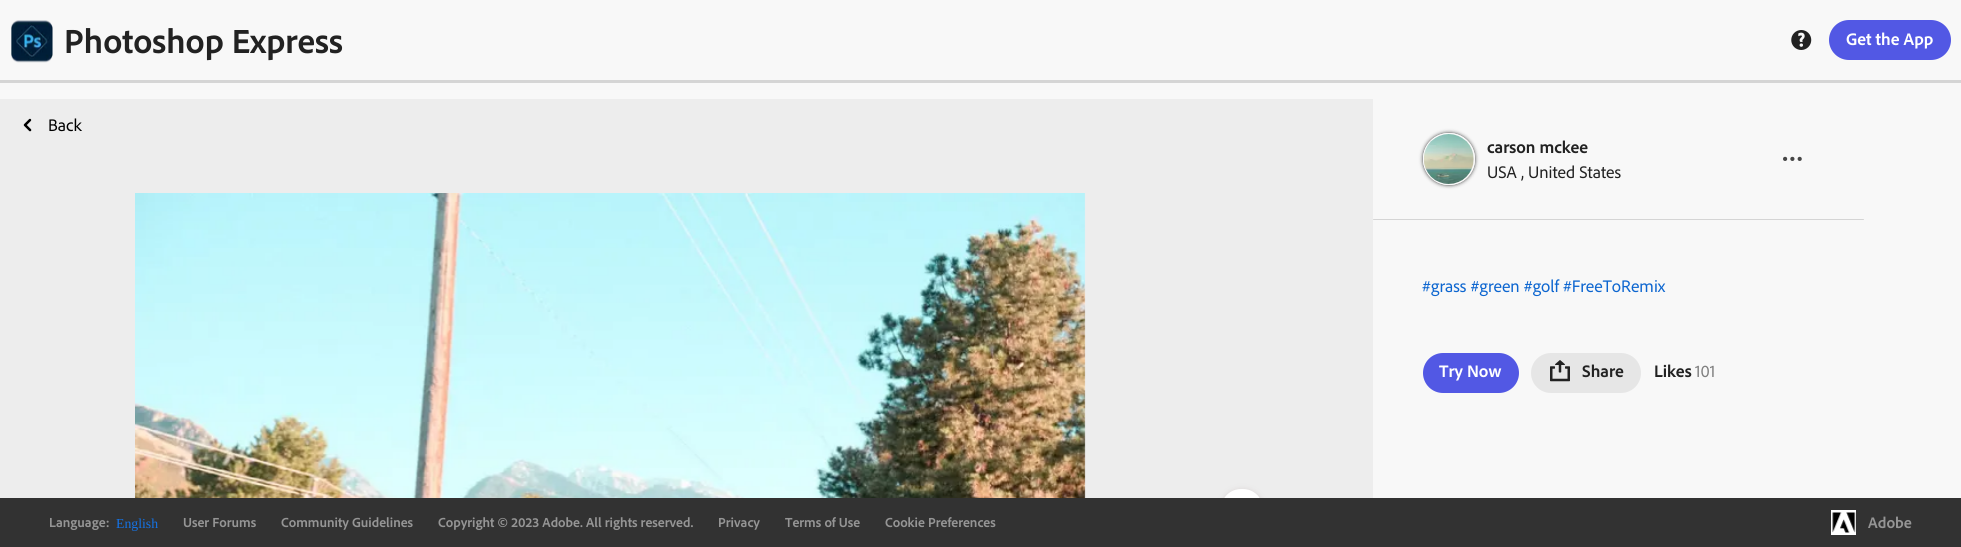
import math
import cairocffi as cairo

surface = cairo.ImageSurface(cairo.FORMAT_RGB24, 1961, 547)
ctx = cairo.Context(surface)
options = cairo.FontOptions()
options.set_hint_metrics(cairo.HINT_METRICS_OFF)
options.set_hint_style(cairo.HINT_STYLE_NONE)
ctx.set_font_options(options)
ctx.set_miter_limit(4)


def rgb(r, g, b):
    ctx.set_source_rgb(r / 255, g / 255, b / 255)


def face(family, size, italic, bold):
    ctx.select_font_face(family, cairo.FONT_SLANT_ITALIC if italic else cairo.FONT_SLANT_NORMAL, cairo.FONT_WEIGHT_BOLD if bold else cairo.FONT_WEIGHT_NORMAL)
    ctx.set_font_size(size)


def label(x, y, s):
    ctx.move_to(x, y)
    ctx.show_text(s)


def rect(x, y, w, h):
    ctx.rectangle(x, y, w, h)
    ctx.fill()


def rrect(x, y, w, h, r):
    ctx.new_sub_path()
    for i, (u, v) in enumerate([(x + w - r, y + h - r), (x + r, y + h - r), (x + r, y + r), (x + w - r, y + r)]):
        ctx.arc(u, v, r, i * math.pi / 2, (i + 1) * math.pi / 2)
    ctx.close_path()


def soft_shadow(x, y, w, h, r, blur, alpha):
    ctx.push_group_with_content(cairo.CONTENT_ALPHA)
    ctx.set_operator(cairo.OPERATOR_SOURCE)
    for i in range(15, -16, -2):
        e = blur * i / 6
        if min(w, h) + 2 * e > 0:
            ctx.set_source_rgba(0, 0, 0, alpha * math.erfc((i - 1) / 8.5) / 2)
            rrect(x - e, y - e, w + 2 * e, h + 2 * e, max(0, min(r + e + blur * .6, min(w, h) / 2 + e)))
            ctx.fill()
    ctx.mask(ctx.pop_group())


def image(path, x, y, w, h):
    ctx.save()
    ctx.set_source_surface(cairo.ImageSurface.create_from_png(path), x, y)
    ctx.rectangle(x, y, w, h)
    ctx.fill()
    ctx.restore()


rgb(248, 248, 248)
ctx.paint()
rgb(213, 213, 213)
rect(0, 80, 1961, 3)
image('image0.png', 11, 20, 42, 43)
face('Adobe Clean', 35, 0, 1)
rgb(34, 34, 34)
label(64, 53, 'Photoshop Express')
image('image1.png', 1791, 30, 21, 20)
rgb(82, 88, 228)
rrect(1829, 20, 122, 40, 20)
ctx.fill()
face('Adobe Clean', 17.5, 0, 1)
rgb(255, 255, 255)
label(1846, 45, 'Get the App')
rgb(237, 237, 237)
rect(0, 99, 1373, 399)
image('image2.png', 23, 118, 9, 14)
face('Adobe Clean', 17.5, 0, 0)
rgb(0, 0, 0)
label(48, 131, 'Back')
image('image3.png', 135, 193, 951, 305)
rgb(212, 205, 205)
soft_shadow(1221, 490, 42, 41, 20, 3, 1)
rgb(255, 255, 255)
rrect(1221, 489, 42, 41, 20)
ctx.fill()
ctx.save()
ctx.set_fill_rule(cairo.FILL_RULE_EVEN_ODD)
ctx.new_path()
ctx.move_to(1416, 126)
ctx.line_to(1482, 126)
ctx.line_to(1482, 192)
ctx.line_to(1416, 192)
ctx.close_path()
ctx.move_to(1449, 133)
ctx.curve_to(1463.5, 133, 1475, 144.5, 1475, 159)
ctx.curve_to(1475, 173.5, 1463.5, 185, 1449, 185)
ctx.curve_to(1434.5, 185, 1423, 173.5, 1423, 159)
ctx.curve_to(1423, 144.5, 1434.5, 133, 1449, 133)
ctx.close_path()
ctx.clip()
rgb(50, 50, 50)
soft_shadow(1423, 133, 52, 52, 26, 2, 1)
ctx.restore()
ctx.arc(1449, 159, 25.5, 0, 2 * math.pi)
rgb(250, 250, 250)
ctx.set_line_width(1)
ctx.stroke()
image('image4.png', 1424, 134, 50, 50)
face('Adobe Clean', 17.5, 0, 1)
rgb(34, 34, 34)
label(1487, 153, 'carson mckee')
face('Adobe Clean', 17.5, 0, 0)
label(1487, 178, 'USA , United States')
rgb(70, 70, 70)
ctx.new_path()
ctx.arc(1792.4, 158.9, 2.1, 0, 2 * math.pi)
ctx.fill()
ctx.arc(1799.7, 158.9, 2.1, 0, 2 * math.pi)
ctx.fill()
ctx.arc(1785.1, 158.9, 2.1, 0, 2 * math.pi)
ctx.fill()
rgb(213, 213, 213)
rrect(1373, 219, 491, 1, 0.5)
ctx.fill()
rgb(13, 102, 208)
label(1422, 292, '#grass #green #golf #FreeToRemix')
rgb(82, 88, 228)
rrect(1423, 353, 96, 40, 20)
ctx.fill()
face('Adobe Clean', 17.5, 0, 1)
rgb(255, 255, 255)
label(1439, 377, 'Try Now')
rgb(230, 230, 230)
rrect(1531, 353, 110, 40, 20)
ctx.fill()
image('image5.png', 1550, 360, 20, 22)
rgb(34, 34, 34)
label(1582, 377, 'Share')
label(1654, 377, 'Likes')
face('Adobe Clean', 17.5, 0, 0)
rgb(128, 128, 128)
label(1695, 377, '101')
rgb(50, 50, 50)
rect(0, 498, 1961, 49)
face('Adobe Clean', 13.75, 0, 1)
rgb(149, 149, 149)
label(49, 527, 'Language:')
face('Liberation Serif', 13.75, 0, 0)
rgb(20, 115, 230)
label(116, 528, 'English')
face('Adobe Clean', 13.75, 0, 1)
rgb(149, 149, 149)
label(183, 527, 'User Forums')
label(281, 527, 'Community Guidelines')
label(438, 527, 'Copyright © 2023 Adobe. All rights reserved.')
label(718, 527, 'Privacy')
label(785, 527, 'Terms of Use')
label(885, 527, 'Cookie Preferences')
rgb(255, 255, 255)
rect(1831, 510, 25, 25)
image('image6.png', 1832, 512, 24, 21)
face('Adobe Clean', 16, 0, 1)
rgb(149, 149, 149)
label(1868, 528, 'Adobe')
surface.write_to_png('render.png')
